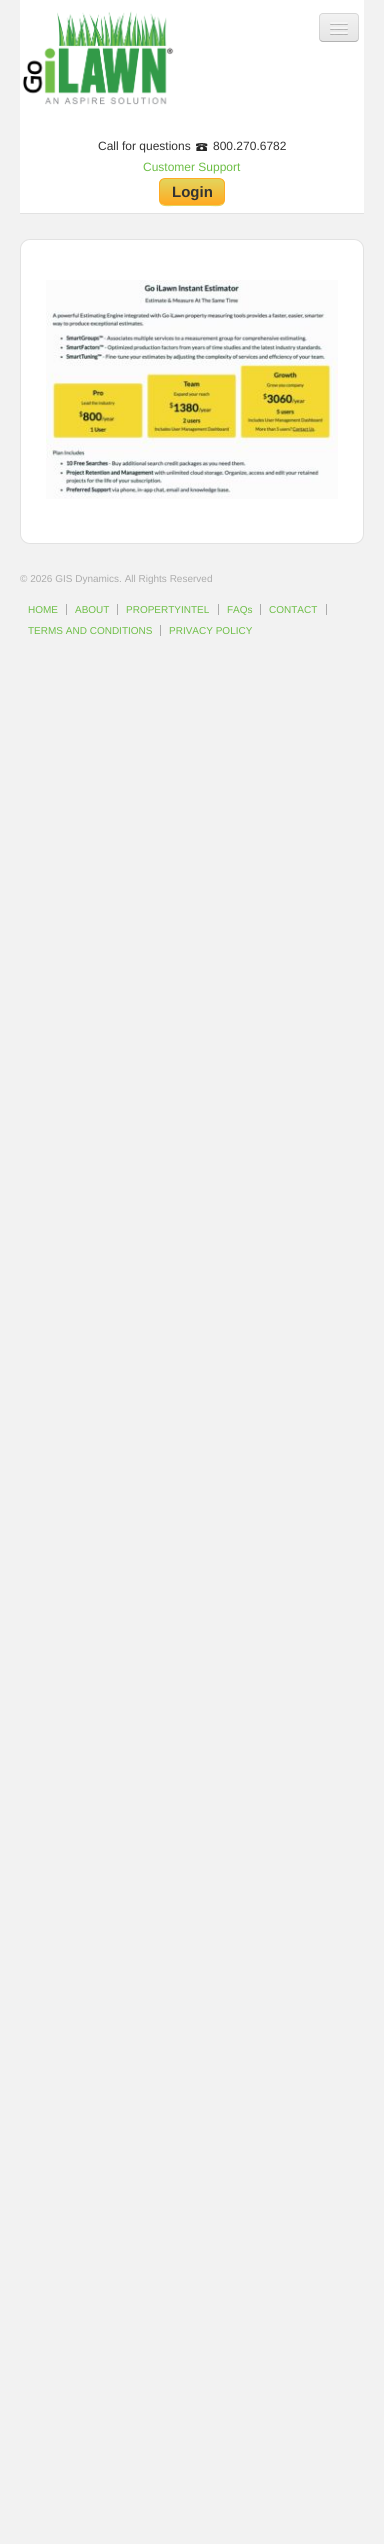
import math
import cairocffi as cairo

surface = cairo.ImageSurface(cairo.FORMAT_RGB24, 384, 2544)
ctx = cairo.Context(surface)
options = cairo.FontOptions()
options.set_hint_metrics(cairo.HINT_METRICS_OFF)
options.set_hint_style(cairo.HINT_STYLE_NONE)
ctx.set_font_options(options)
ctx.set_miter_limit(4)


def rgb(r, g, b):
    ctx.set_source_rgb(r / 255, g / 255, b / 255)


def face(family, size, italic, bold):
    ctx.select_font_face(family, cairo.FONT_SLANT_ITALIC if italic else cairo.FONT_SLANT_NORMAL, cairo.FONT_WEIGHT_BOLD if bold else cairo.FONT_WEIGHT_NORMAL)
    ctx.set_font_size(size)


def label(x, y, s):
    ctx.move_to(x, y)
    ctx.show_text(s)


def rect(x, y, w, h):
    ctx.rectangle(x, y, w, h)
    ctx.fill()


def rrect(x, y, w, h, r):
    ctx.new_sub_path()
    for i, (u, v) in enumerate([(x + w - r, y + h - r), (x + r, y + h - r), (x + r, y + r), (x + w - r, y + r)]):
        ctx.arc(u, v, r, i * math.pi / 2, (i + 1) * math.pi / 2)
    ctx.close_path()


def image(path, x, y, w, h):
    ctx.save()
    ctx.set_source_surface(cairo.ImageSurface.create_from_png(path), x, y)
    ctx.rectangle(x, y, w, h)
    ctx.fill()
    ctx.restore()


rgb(242, 242, 242)
ctx.paint()
rgb(255, 255, 255)
rect(20, 0, 344, 213)
rgb(226, 226, 226)
rect(20, 213, 344, 1)
image('image0.png', 22, 11, 152, 94)
rgb(237, 237, 237)
rrect(319, 13, 40, 29, 4)
ctx.fill()
ctx.save()
rrect(319, 13, 40, 29, 4)
ctx.clip()
gradient = cairo.LinearGradient(339, 14, 339, 41)
gradient.add_color_stop_rgba(0, 0.949, 0.949, 0.949, 1)
gradient.add_color_stop_rgba(1, 0.898, 0.898, 0.898, 1)
ctx.set_source(gradient)
rect(319, 14, 40, 27)
ctx.restore()
ctx.new_path()
ctx.move_to(357.5, 40.5)
ctx.curve_to(357, 41, 356, 41.5, 355, 41.5)
ctx.line_to(323, 41.5)
ctx.curve_to(322, 41.5, 321, 41, 320.5, 40.5)
ctx.set_source_rgba(0, 0, 0, 0.25)
ctx.set_line_width(1)
ctx.stroke()
ctx.new_path()
ctx.move_to(320.5, 40.5)
ctx.curve_to(320, 40, 319.5, 39, 319.5, 38)
ctx.line_to(319.5, 17)
ctx.curve_to(319.5, 16, 320, 15, 320.5, 14.5)
ctx.curve_to(321, 14, 322, 13.5, 323, 13.5)
ctx.line_to(355, 13.5)
ctx.curve_to(356, 13.5, 357, 14, 357.5, 14.5)
ctx.curve_to(358, 15, 358.5, 16, 358.5, 17)
ctx.line_to(358.5, 38)
ctx.curve_to(358.5, 39, 358, 40, 357.5, 40.5)
ctx.set_source_rgba(0, 0, 0, 0.1)
ctx.stroke()
rgb(178, 178, 178)
ctx.new_path()
ctx.move_to(330, 23.5)
ctx.curve_to(329, 25.5, 333.5, 25, 333.5, 25)
ctx.line_to(344.5, 25)
ctx.curve_to(344.5, 25, 349, 25.5, 348, 23.5)
ctx.curve_to(347, 24.5, 340.5, 24, 339, 24)
ctx.curve_to(337.5, 24, 331, 24.5, 330, 23.5)
ctx.close_path()
ctx.fill()
rgb(245, 245, 245)
rrect(330, 22, 18, 2, 1)
ctx.fill()
rgb(176, 176, 176)
ctx.new_path()
ctx.move_to(330, 28.5)
ctx.curve_to(329, 30.5, 333.5, 30, 333.5, 30)
ctx.line_to(344.5, 30)
ctx.curve_to(344.5, 30, 349, 30.5, 348, 28.5)
ctx.curve_to(347, 29.5, 340.5, 29, 339, 29)
ctx.curve_to(337.5, 29, 331, 29.5, 330, 28.5)
ctx.close_path()
ctx.fill()
rgb(245, 245, 245)
rrect(330, 27, 18, 2, 1)
ctx.fill()
rgb(174, 174, 174)
ctx.new_path()
ctx.move_to(330, 33.5)
ctx.curve_to(329, 35.5, 333.5, 35, 333.5, 35)
ctx.line_to(344.5, 35)
ctx.curve_to(344.5, 35, 349, 35.5, 348, 33.5)
ctx.curve_to(347, 34.5, 340.5, 34, 339, 34)
ctx.curve_to(337.5, 34, 331, 34.5, 330, 33.5)
ctx.close_path()
ctx.fill()
rgb(245, 245, 245)
rrect(330, 32, 18, 2, 1)
ctx.fill()
face('Liberation Sans', 12, 0, 0)
rgb(51, 51, 51)
label(98, 150, 'Call for questions')
image('image1.png', 196, 143, 12, 8)
label(213, 150, '800.270.6782')
rgb(109, 190, 70)
label(143, 171, 'Customer Support')
rgb(228, 211, 90)
ctx.new_path()
ctx.move_to(159, 199)
ctx.curve_to(159, 208, 167, 206, 174, 206)
ctx.line_to(210, 206)
ctx.curve_to(217, 206, 225, 208, 225, 199)
ctx.curve_to(225, 202, 222, 205, 219, 205)
ctx.line_to(165, 205)
ctx.curve_to(162, 205, 159, 202, 159, 199)
ctx.close_path()
ctx.fill()
ctx.save()
rrect(159, 178, 66, 27, 6)
ctx.clip()
gradient = cairo.LinearGradient(192, 179, 192, 204)
gradient.add_color_stop_rgba(0.05, 0.894, 0.827, 0.353, 1)
gradient.add_color_stop_rgba(1, 1, 0.671, 0.137, 1)
ctx.set_source(gradient)
rect(159, 179, 66, 25)
ctx.restore()
rrect(159.5, 178.5, 65, 26, 5.5)
rgb(255, 170, 34)
ctx.stroke()
face('Liberation Sans', 15, 0, 1)
rgb(51, 51, 51)
label(172, 197, 'Login')
rgb(255, 255, 255)
rrect(20.5, 239.5, 343, 304, 9.5)
ctx.fill_preserve()
rgb(226, 226, 226)
ctx.stroke()
image('image2.png', 46, 280, 292, 219)
face('Liberation Sans', 10, 0, 0)
rgb(172, 172, 172)
label(20, 582, '© 2026 GIS Dynamics. All Rights Reserved')
rgb(109, 190, 70)
label(28, 613, 'HOME')
rgb(172, 172, 172)
rect(66, 604, 1, 11)
rgb(109, 190, 70)
label(75, 613, 'ABOUT')
rgb(172, 172, 172)
rect(117, 604, 1, 11)
rgb(109, 190, 70)
label(126, 613, 'PROPERTYINTEL')
rgb(172, 172, 172)
rect(218, 604, 1, 11)
rgb(109, 190, 70)
label(227, 613, 'FAQs')
rgb(172, 172, 172)
rect(260, 604, 1, 11)
rgb(109, 190, 70)
label(269, 613, 'CONTACT')
rgb(172, 172, 172)
rect(326, 604, 1, 11)
rgb(109, 190, 70)
label(28, 634, 'TERMS AND CONDITIONS')
rgb(172, 172, 172)
rect(160, 625, 1, 11)
rgb(109, 190, 70)
label(169, 634, 'PRIVACY POLICY')
surface.write_to_png('render.png')
